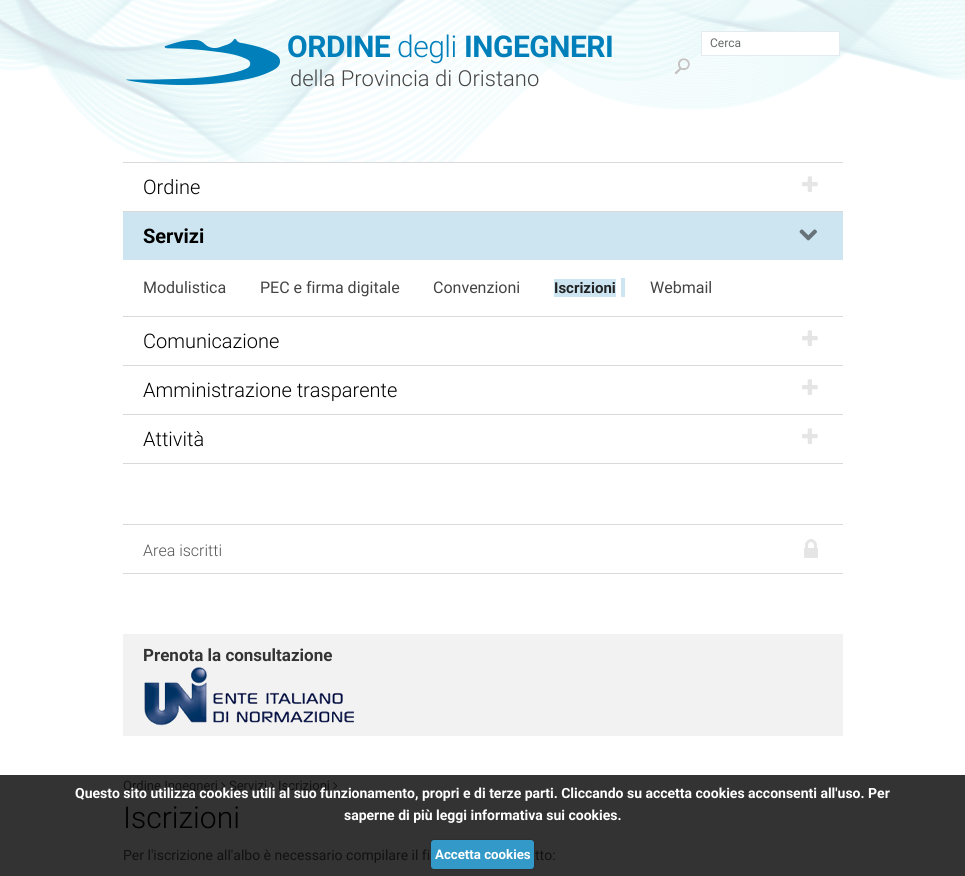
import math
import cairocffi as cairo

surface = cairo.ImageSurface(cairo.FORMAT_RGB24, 965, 876)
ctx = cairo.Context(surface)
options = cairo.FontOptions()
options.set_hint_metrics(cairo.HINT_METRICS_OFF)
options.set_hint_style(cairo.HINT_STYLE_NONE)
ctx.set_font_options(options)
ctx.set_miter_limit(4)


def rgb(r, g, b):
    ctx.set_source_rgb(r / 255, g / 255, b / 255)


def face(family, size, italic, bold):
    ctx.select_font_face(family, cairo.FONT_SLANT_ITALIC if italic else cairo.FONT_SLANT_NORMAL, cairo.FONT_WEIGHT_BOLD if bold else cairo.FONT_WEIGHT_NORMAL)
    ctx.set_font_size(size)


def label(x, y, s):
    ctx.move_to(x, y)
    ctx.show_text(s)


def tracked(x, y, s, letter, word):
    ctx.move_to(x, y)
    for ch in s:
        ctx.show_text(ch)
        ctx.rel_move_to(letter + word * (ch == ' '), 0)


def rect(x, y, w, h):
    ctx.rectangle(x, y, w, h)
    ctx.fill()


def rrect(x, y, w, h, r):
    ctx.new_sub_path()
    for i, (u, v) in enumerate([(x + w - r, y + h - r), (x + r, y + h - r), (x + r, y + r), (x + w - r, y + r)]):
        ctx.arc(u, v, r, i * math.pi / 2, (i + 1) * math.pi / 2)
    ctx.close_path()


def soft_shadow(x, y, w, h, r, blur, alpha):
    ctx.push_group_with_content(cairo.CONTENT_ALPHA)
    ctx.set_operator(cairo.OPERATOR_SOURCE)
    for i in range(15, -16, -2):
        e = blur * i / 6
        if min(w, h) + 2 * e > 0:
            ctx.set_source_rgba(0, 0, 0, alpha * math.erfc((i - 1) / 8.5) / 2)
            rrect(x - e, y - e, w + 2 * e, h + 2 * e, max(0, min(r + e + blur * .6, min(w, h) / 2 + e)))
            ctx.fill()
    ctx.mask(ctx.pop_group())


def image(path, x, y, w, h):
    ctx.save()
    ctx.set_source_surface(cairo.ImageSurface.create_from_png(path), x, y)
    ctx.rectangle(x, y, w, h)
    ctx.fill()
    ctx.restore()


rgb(255, 255, 255)
ctx.paint()
rgb(51, 51, 51)
rect(0, 775, 965, 101)
image('image0.png', 0, 0, 965, 162)
image('image1.png', 126, 39, 154, 46)
face('Roboto', 30, 0, 1)
rgb(0, 127, 186)
tracked(287, 57, 'ORDINE', -0.5, 0)
face('Roboto Light', 30, 0, 0)
tracked(397, 57, 'degli', -0.5, 0)
face('Roboto', 30, 0, 1)
tracked(464, 57, 'INGEGNERI', -0.5, 0)
face('Roboto Light', 22, 0, 0)
rgb(68, 68, 68)
label(290, 86, 'della Provincia di Oristano')
rgb(255, 255, 255)
ctx.rectangle(701.5, 31.5, 138, 24)
ctx.fill_preserve()
rgb(227, 235, 240)
ctx.set_line_width(1)
ctx.stroke()
face('Roboto', 12, 0, 0)
rgb(105, 107, 107)
label(710, 47, 'Cerca')
image('image2.png', 674, 58, 16, 17)
rgb(217, 217, 217)
rect(123, 463, 720, 1)
rect(123, 162, 720, 1)
face('Roboto Light', 20, 0, 0)
rgb(0, 0, 0)
label(143, 194, 'Ordine')
image('image3.png', 802, 176, 16, 16)
rgb(204, 229, 241)
rect(123, 212, 720, 48)
rgb(217, 217, 217)
rect(123, 211, 720, 1)
face('Roboto', 20, 0, 1)
rgb(0, 0, 0)
label(143, 243, 'Servizi')
image('image4.png', 799, 229, 18, 12)
face('Roboto', 16, 0, 0)
rgb(68, 68, 68)
label(143, 293, 'Modulistica')
label(260, 293, 'PEC e firma digitale')
label(433, 293, 'Convenzioni')
rgb(204, 229, 241)
rect(554, 279, 62, 18)
face('Roboto', 15, 0, 1)
rgb(34, 34, 34)
label(554, 293, 'Iscrizioni')
rgb(204, 229, 241)
rect(621, 278, 4, 19)
face('Roboto', 16, 0, 0)
rgb(68, 68, 68)
label(650, 293, 'Webmail')
rgb(217, 217, 217)
rect(123, 316, 720, 1)
face('Roboto Light', 20, 0, 0)
rgb(0, 0, 0)
label(143, 348, 'Comunicazione')
image('image3.png', 802, 330, 16, 16)
rgb(217, 217, 217)
rect(123, 365, 720, 1)
rgb(0, 0, 0)
label(143, 397, 'Amministrazione trasparente')
image('image3.png', 802, 379, 16, 16)
rgb(217, 217, 217)
rect(123, 414, 720, 1)
rgb(0, 0, 0)
label(143, 446, 'Attività')
image('image3.png', 802, 428, 16, 16)
rgb(217, 217, 217)
rect(123, 524, 720, 1)
rect(123, 573, 720, 1)
face('Roboto Light', 16, 0, 0)
rgb(85, 85, 85)
label(143, 556, 'Area iscritti')
image('image5.png', 804, 539, 14, 19)
rgb(242, 242, 242)
rect(123, 634, 720, 102)
face('Roboto', 17, 0, 1)
rgb(51, 51, 51)
label(143, 661, 'Prenota la consultazione')
image('image6.png', 144, 667, 210, 59)
face('Roboto', 13, 0, 0)
rgb(17, 17, 18)
label(123, 790, 'Ordine Ingegneri')
image('image7.png', 221, 782, 5, 8)
label(229, 790, 'Servizi')
image('image7.png', 270, 782, 5, 8)
label(278, 790, 'Iscrizioni')
image('image7.png', 333, 782, 5, 8)
face('Roboto Light', 30, 0, 0)
rgb(0, 0, 0)
label(123, 828, 'Iscrizioni')
face('Roboto', 14, 0, 0)
rgb(17, 17, 18)
label(123, 860, 'Per l\'iscrizione all\'albo è necessario compilare il fi')
label(535, 860, 'tto:')
face('Roboto', 14, 0, 1)
rgb(255, 255, 255)
label(75, 798, 'Questo sito utilizza cookies utili al suo funzionamento, propri e di terze parti. Cliccando su accetta cookies acconsenti all\'uso. Per')
label(344, 820, 'saperne di più leggi informativa sui cookies.')
rgb(0, 0, 0)
soft_shadow(431, 840, 103, 29, 3, 1, 0.25)
rgb(51, 153, 200)
rrect(431, 840, 103, 29, 3)
ctx.fill()
face('Roboto', 13.25, 0, 1)
rgb(255, 255, 255)
label(435, 859, 'Accetta cookies')
surface.write_to_png('render.png')
